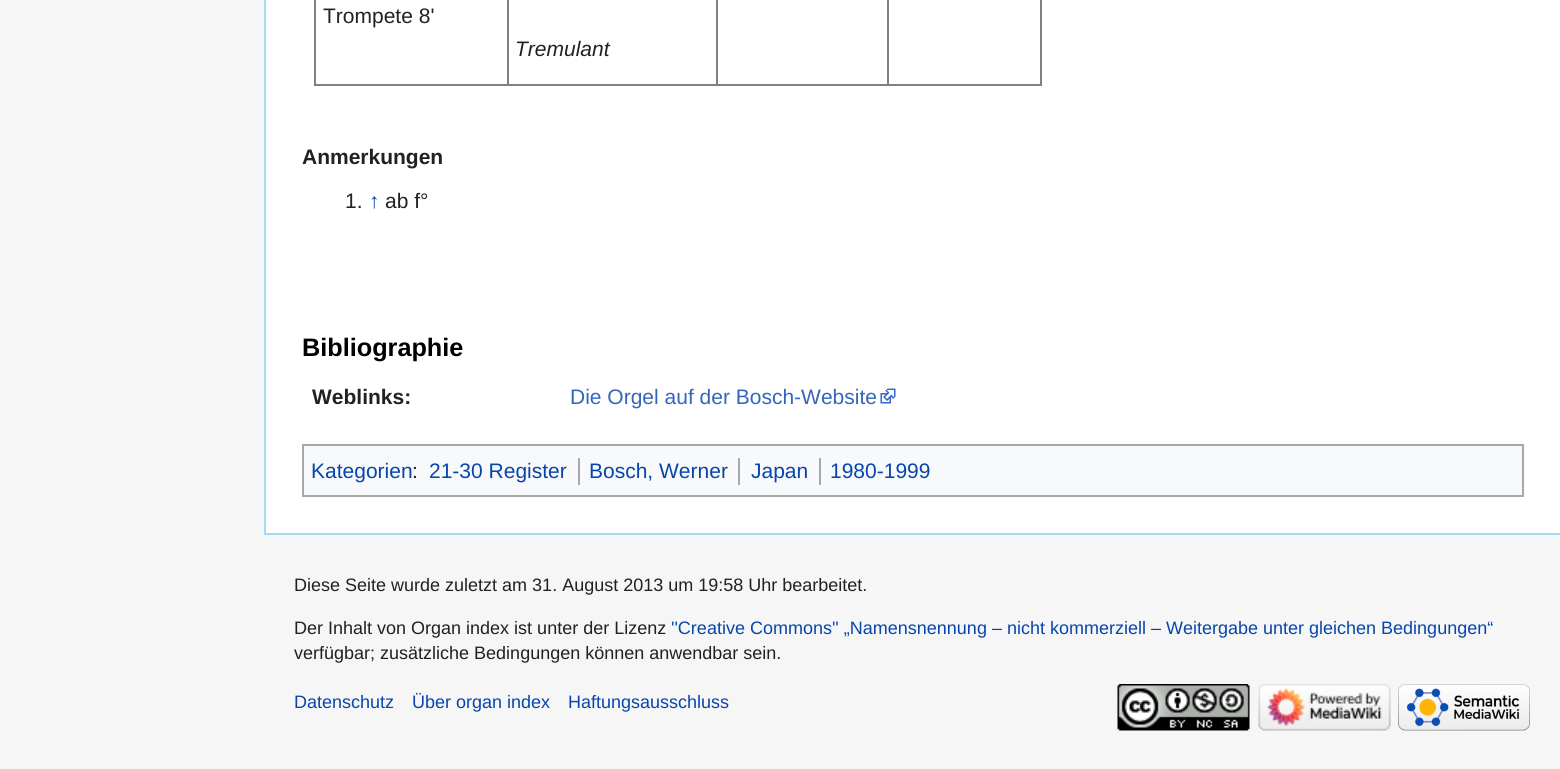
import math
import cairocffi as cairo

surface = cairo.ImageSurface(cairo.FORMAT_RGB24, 1560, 769)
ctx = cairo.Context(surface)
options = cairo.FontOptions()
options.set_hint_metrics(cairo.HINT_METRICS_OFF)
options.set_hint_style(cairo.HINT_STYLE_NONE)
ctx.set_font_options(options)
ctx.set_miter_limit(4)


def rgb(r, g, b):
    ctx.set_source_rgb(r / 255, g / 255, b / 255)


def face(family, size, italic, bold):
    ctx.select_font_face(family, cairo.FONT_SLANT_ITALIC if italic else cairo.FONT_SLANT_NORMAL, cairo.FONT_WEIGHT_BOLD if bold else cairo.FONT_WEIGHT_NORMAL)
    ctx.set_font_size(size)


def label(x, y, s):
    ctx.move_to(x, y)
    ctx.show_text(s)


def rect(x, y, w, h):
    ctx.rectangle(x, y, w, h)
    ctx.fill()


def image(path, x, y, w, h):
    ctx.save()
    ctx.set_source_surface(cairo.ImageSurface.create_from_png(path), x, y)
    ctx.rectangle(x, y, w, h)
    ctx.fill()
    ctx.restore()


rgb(246, 246, 246)
ctx.paint()
rgb(255, 255, 255)
rect(266, 0, 1294, 533)
rgb(167, 215, 249)
rect(264, 533, 1296, 2)
rect(264, 0, 2, 534)
rgb(128, 128, 128)
rect(1040, 0, 2, 86)
rect(314, 84, 727, 2)
rect(314, 0, 2, 86)
face('Liberation Sans', 21, 0, 0)
rgb(32, 33, 34)
label(323, 23, 'Trompete 8\'')
rgb(128, 128, 128)
rect(716, 0, 2, 86)
rect(887, 0, 2, 86)
rect(507, 0, 2, 86)
face('Liberation Sans', 21, 1, 0)
rgb(32, 33, 34)
label(515, 56, 'Tremulant')
face('Liberation Sans', 21, 0, 1)
label(302, 164, 'Anmerkungen')
face('Liberation Sans', 21, 0, 0)
label(345, 208, '1.')
rgb(6, 69, 173)
label(369, 208, '↑')
rgb(32, 33, 34)
label(385, 208, 'ab f°')
face('Liberation Sans', 25.25, 0, 1)
rgb(0, 0, 0)
label(302, 356, 'Bibliographie')
face('Liberation Sans', 21, 0, 1)
rgb(32, 33, 34)
label(312, 404, 'Weblinks:')
face('Liberation Sans', 21, 0, 0)
rgb(51, 102, 187)
label(570, 404, 'Die Orgel auf der Bosch-Website')
image('image0.png', 880, 388, 16, 16)
rgb(248, 249, 250)
ctx.rectangle(303, 445, 1220, 51)
ctx.fill_preserve()
rgb(162, 169, 177)
ctx.stroke()
rgb(6, 69, 173)
label(311, 478, 'Kategorien')
rgb(32, 33, 34)
label(412, 478, ':')
rgb(6, 69, 173)
label(429, 478, '21-30 Register')
rgb(162, 169, 177)
rect(578, 458, 2, 27)
rgb(6, 69, 173)
label(589, 478, 'Bosch, Werner')
rgb(162, 169, 177)
rect(738, 458, 2, 27)
rgb(6, 69, 173)
label(751, 478, 'Japan')
rgb(162, 169, 177)
rect(819, 458, 2, 27)
rgb(6, 69, 173)
label(830, 478, '1980-1999')
face('Liberation Sans', 18, 0, 0)
rgb(32, 33, 34)
label(294, 591, 'Diese Seite wurde zuletzt am 31. August 2013 um 19:58 Uhr bearbeitet.')
label(294, 634, 'Der Inhalt von Organ index ist unter der Lizenz')
rgb(6, 69, 173)
label(671, 634, '\'\'Creative Commons\'\' „Namensnennung – nicht kommerziell – Weitergabe unter gleichen Bedingungen“')
rgb(32, 33, 34)
label(294, 659, 'verfügbar; zusätzliche Bedingungen können anwendbar sein.')
rgb(6, 69, 173)
label(294, 708, 'Datenschutz')
label(412, 708, 'Über organ index')
label(568, 708, 'Haftungsausschluss')
image('image1.png', 1117, 684, 133, 47)
image('image2.png', 1258, 684, 133, 47)
image('image3.png', 1398, 684, 132, 47)
surface.write_to_png('render.png')
